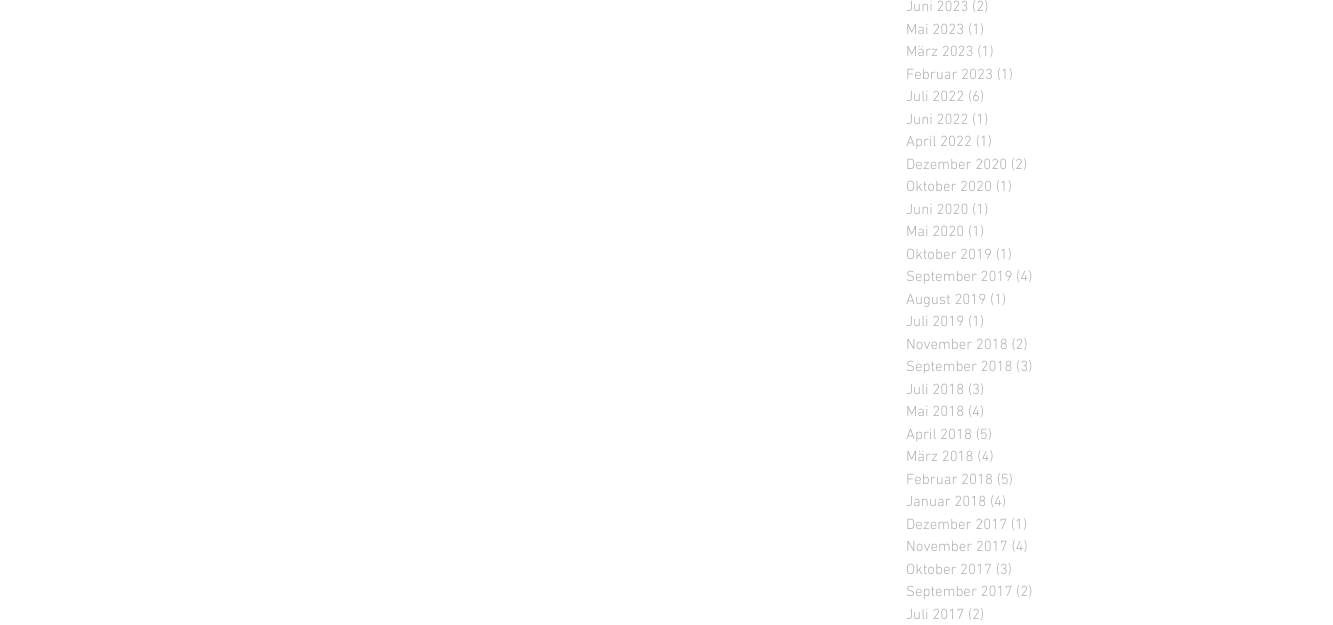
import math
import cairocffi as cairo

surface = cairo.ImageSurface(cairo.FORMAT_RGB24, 1333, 625)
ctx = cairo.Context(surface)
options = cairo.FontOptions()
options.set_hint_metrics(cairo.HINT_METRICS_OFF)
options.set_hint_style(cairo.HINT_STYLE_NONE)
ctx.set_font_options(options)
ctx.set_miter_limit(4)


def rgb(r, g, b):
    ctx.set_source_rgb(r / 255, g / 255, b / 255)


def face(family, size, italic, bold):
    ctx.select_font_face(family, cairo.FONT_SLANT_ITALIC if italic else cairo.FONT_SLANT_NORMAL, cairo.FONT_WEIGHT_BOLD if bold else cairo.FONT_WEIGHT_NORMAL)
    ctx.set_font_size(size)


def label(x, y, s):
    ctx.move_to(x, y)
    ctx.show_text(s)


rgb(255, 255, 255)
ctx.paint()
face('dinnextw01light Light', 15, 0, 0)
rgb(177, 177, 177)
label(906, 11, 'Juni 2023 (2)')
label(906, 34, 'Mai 2023 (1)')
label(906, 56, 'März 2023 (1)')
label(906, 79, 'Februar 2023 (1)')
label(906, 101, 'Juli 2022 (6)')
label(906, 124, 'Juni 2022 (1)')
label(906, 146, 'April 2022 (1)')
label(906, 169, 'Dezember 2020 (2)')
label(906, 191, 'Oktober 2020 (1)')
label(906, 214, 'Juni 2020 (1)')
label(906, 236, 'Mai 2020 (1)')
label(906, 259, 'Oktober 2019 (1)')
label(906, 281, 'September 2019 (4)')
label(906, 304, 'August 2019 (1)')
label(906, 326, 'Juli 2019 (1)')
label(906, 349, 'November 2018 (2)')
label(906, 371, 'September 2018 (3)')
label(906, 394, 'Juli 2018 (3)')
label(906, 416, 'Mai 2018 (4)')
label(906, 439, 'April 2018 (5)')
label(906, 461, 'März 2018 (4)')
label(906, 484, 'Februar 2018 (5)')
label(906, 506, 'Januar 2018 (4)')
label(906, 529, 'Dezember 2017 (1)')
label(906, 551, 'November 2017 (4)')
label(906, 574, 'Oktober 2017 (3)')
label(906, 596, 'September 2017 (2)')
label(906, 619, 'Juli 2017 (2)')
surface.write_to_png('render.png')
